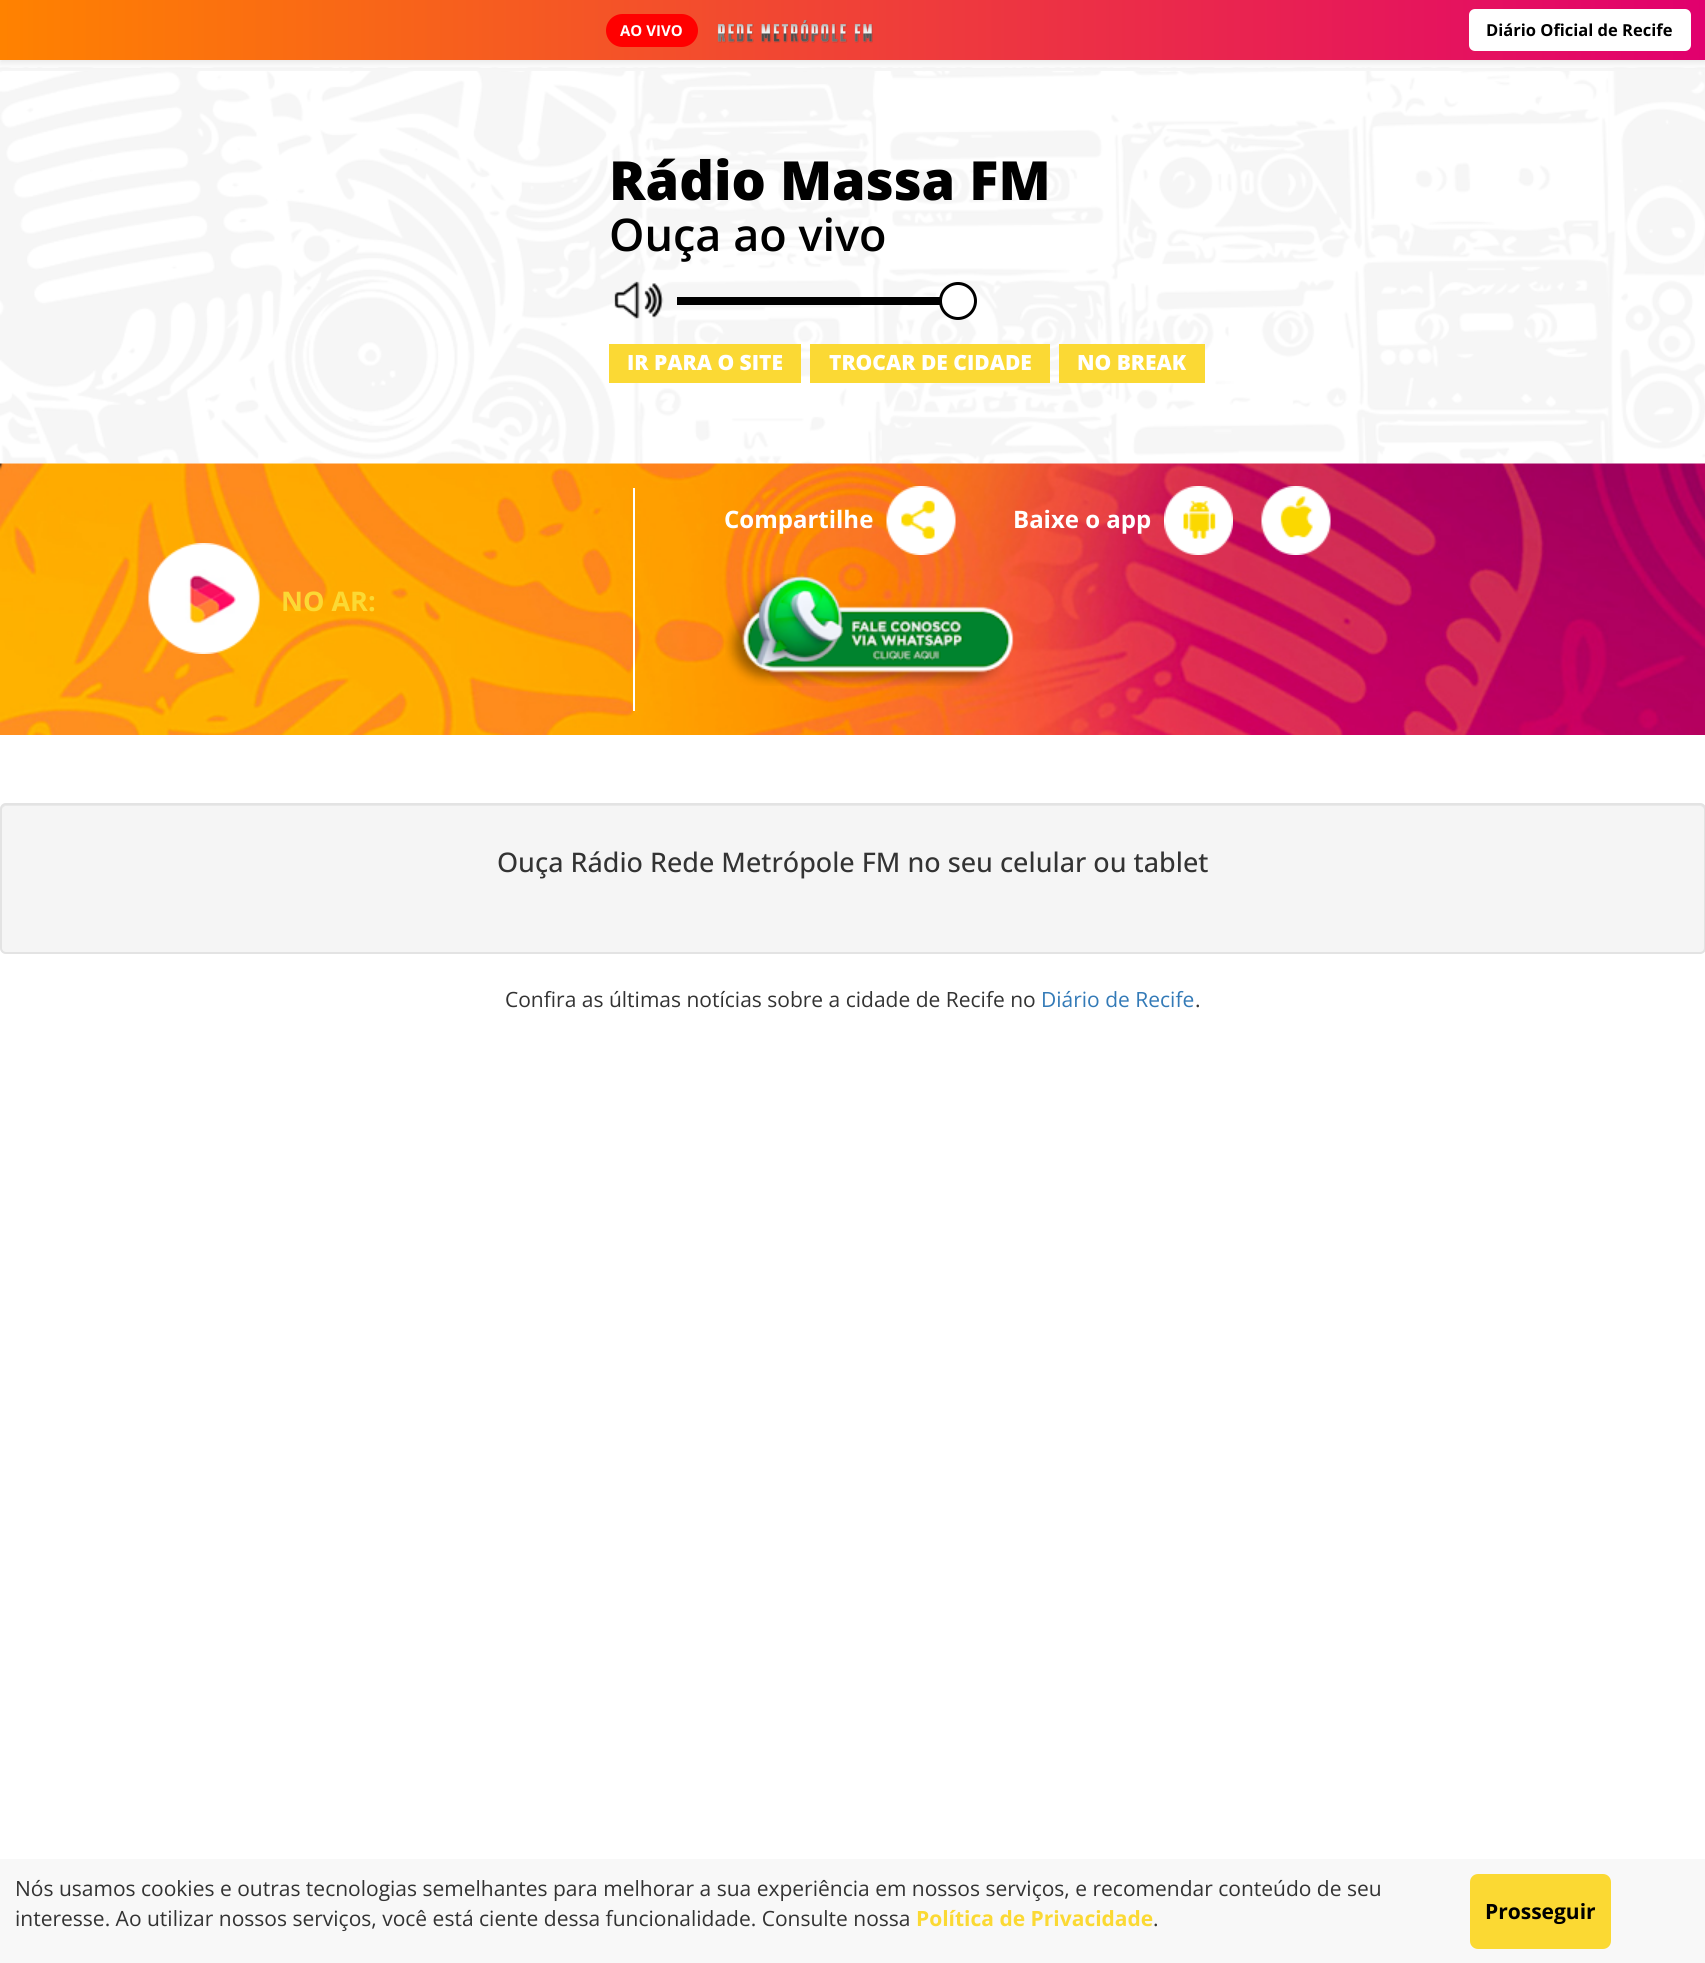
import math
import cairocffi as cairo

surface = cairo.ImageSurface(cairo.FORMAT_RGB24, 1705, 1963)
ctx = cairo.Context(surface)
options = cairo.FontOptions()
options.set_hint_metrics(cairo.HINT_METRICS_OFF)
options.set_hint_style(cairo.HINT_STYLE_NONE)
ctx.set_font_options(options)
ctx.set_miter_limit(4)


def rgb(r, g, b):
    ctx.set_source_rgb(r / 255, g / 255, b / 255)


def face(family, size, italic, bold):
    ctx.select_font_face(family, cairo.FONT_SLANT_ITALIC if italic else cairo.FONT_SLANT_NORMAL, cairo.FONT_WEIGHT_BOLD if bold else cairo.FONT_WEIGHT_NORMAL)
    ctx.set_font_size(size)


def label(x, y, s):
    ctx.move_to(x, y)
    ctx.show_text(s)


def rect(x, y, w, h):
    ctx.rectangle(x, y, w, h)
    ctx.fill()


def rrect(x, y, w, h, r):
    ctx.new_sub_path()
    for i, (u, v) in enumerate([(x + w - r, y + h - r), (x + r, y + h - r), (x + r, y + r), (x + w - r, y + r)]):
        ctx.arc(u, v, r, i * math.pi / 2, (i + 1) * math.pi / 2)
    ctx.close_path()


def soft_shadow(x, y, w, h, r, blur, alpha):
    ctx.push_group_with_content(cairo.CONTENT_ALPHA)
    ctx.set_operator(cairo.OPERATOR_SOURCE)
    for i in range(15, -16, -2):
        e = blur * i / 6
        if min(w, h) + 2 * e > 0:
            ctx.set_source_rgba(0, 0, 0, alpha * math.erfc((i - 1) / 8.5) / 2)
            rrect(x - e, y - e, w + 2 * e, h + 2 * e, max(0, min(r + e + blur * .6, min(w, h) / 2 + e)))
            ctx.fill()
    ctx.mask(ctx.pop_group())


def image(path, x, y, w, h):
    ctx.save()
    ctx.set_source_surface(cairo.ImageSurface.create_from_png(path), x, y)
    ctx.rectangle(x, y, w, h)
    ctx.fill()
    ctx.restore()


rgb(255, 255, 255)
ctx.paint()
image('image1.png', 0, 67, 1705, 397)
rgb(246, 246, 246)
rect(0, 68, 1696, 3)
rgb(0, 0, 0)
soft_shadow(0, 3, 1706, 60, 0, 4, 0.1)
gradient = cairo.LinearGradient(0, 30, 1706, 30)
gradient.add_color_stop_rgba(0, 1, 0.51, 0, 1)
gradient.add_color_stop_rgba(1, 0.882, 0, 0.431, 1)
ctx.set_source(gradient)
rect(0, 0, 1705, 60)
rgb(255, 0, 0)
rrect(606, 14, 92, 33, 16.5)
ctx.fill()
face('Open Sans', 15, 0, 1)
rgb(255, 255, 255)
label(620, 36, 'AO VIVO')
image('image0.png', 717, 19, 156, 24)
rrect(1469, 9, 222, 42, 6)
ctx.fill()
face('Open Sans', 16.5, 0, 1)
rgb(0, 0, 0)
label(1486, 36, 'Diário Oficial de Recife')
face('Open Sans ExtraBold', 54, 0, 0)
label(609, 200, 'Rádio Massa FM')
face('Open Sans SemiBold', 45, 0, 0)
label(609, 251, 'Ouça ao vivo')
image('image2.png', 614, 281, 50, 38)
rect(677, 297, 263, 8)
rgb(255, 255, 255)
ctx.arc(958, 301, 17.5, 0, 2 * math.pi)
ctx.fill_preserve()
rgb(0, 0, 0)
ctx.set_line_width(3)
ctx.stroke()
rgb(251, 217, 52)
rect(609, 344, 192, 39)
face('Open Sans ExtraBold', 21, 0, 0)
rgb(255, 255, 255)
label(627, 370, 'IR PARA O SITE')
rgb(251, 217, 52)
rect(810, 344, 240, 39)
rgb(255, 255, 255)
label(829, 370, 'TROCAR DE CIDADE')
rgb(251, 217, 52)
rect(1059, 344, 146, 39)
rgb(255, 255, 255)
label(1077, 370, 'NO BREAK')
image('image3.png', 0, 463, 1705, 272)
rect(633, 488, 2, 223)
face('Open Sans', 24, 0, 1)
label(724, 528, 'Compartilhe')
image('image4.png', 886, 486, 70, 69)
label(1013, 528, 'Baixe o app')
image('image5.png', 1164, 486, 69, 69)
image('image6.png', 1261, 486, 70, 69)
image('image7.png', 725, 574, 289, 112)
image('image8.png', 148, 543, 112, 111)
face('Open Sans', 27, 0, 1)
rgb(251, 217, 52)
label(281, 611, 'NO AR:')
rgb(245, 245, 245)
rrect(0, 803, 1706, 151, 6)
ctx.fill()
rgb(233, 233, 233)
ctx.new_path()
ctx.move_to(6, 806)
ctx.line_to(1700, 806)
ctx.curve_to(1702, 806, 1704, 808, 1704, 810)
ctx.line_to(1704, 809)
ctx.curve_to(1704, 806, 1702, 804, 1699, 804)
ctx.line_to(7, 804)
ctx.curve_to(4, 804, 2, 806, 2, 809)
ctx.line_to(2, 810)
ctx.curve_to(2, 808, 4, 806, 6, 806)
ctx.close_path()
ctx.fill()
rrect(1, 804, 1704, 149, 5)
rgb(227, 227, 227)
ctx.set_line_width(2)
ctx.stroke()
face('Open Sans Medium', 27, 0, 0)
rgb(51, 51, 51)
label(497, 872, 'Ouça Rádio Rede Metrópole FM no seu celular ou tablet')
face('Open Sans', 21, 0, 0)
label(505, 1007, 'Confira as últimas notícias sobre a cidade de Recife no')
rgb(51, 122, 183)
label(1041, 1007, 'Diário de Recife')
rgb(51, 51, 51)
label(1195, 1007, '.')
rgb(248, 248, 248)
rect(0, 1859, 1705, 104)
rgb(51, 51, 51)
label(15, 1896, 'Nós usamos cookies e outras tecnologias semelhantes para melhorar a sua experiência em nossos serviços, e recomendar conteúdo de seu')
label(15, 1926, 'interesse. Ao utilizar nossos serviços, você está ciente dessa funcionalidade. Consulte nossa')
face('Open Sans', 21, 0, 1)
rgb(251, 217, 52)
label(916, 1926, 'Política de Privacidade')
face('Open Sans', 21, 0, 0)
rgb(51, 51, 51)
label(1153, 1926, '.')
rgb(251, 217, 51)
rrect(1470, 1874, 141, 75, 8)
ctx.fill()
face('Open Sans', 21, 0, 1)
rgb(0, 0, 0)
label(1485, 1919, 'Prosseguir')
surface.write_to_png('render.png')
